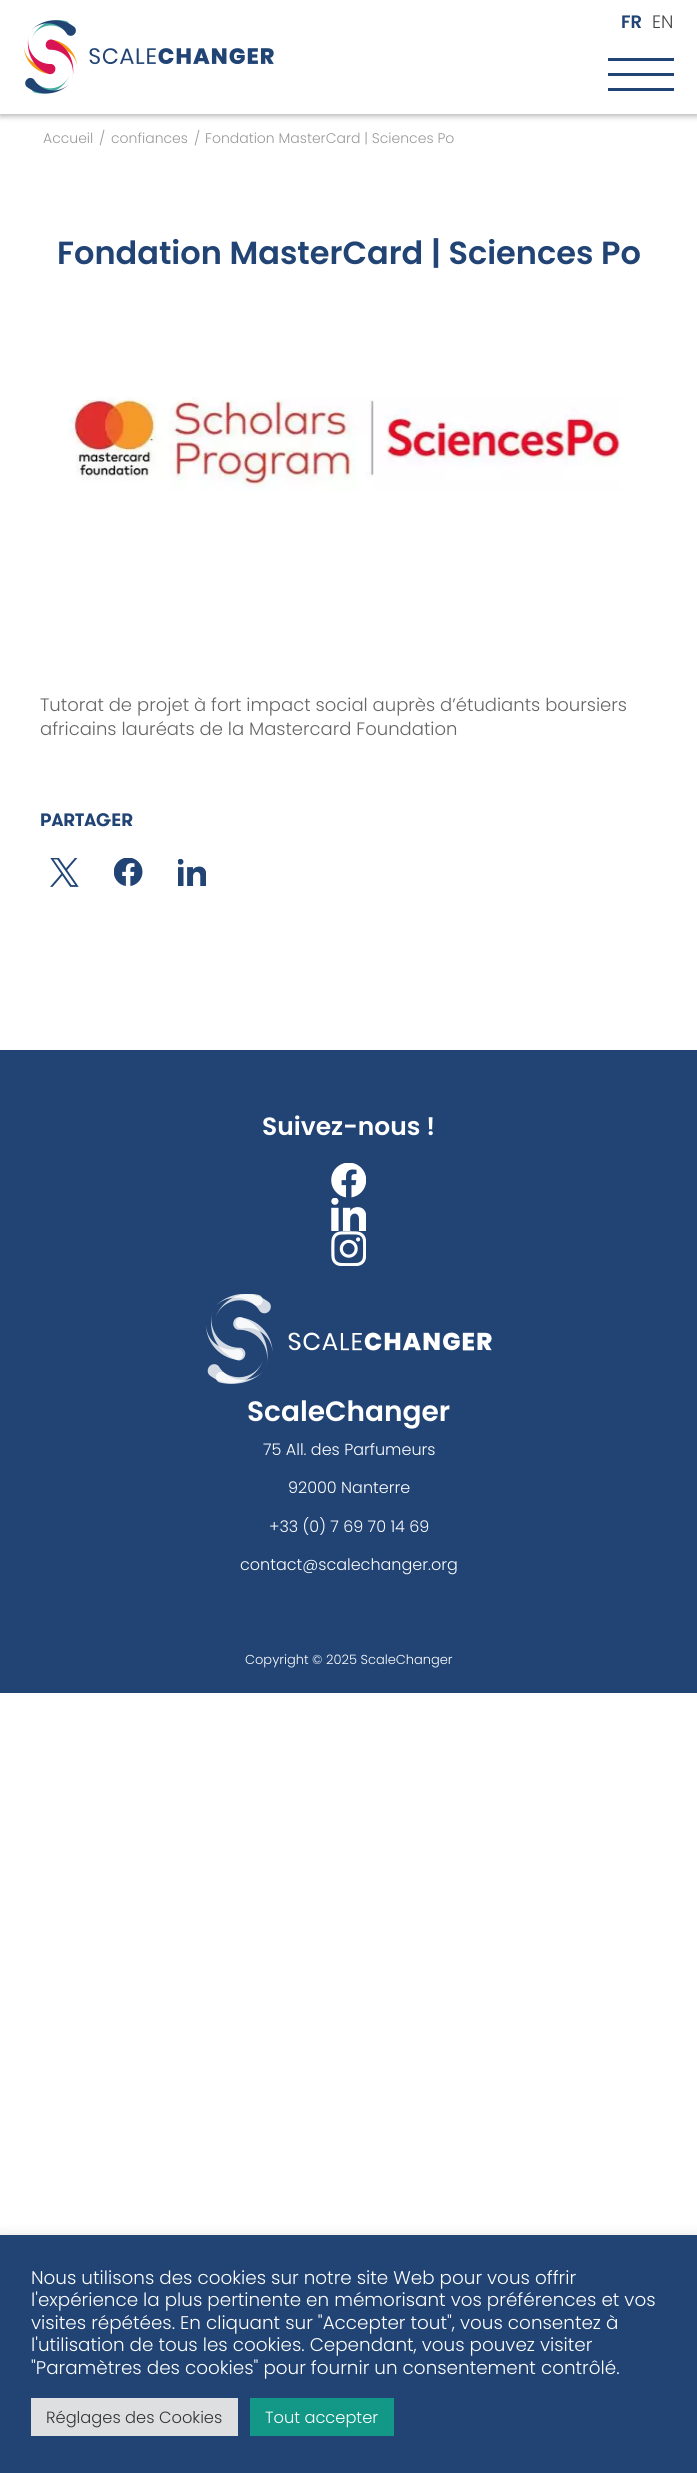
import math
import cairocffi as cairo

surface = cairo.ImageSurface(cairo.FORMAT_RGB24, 697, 2473)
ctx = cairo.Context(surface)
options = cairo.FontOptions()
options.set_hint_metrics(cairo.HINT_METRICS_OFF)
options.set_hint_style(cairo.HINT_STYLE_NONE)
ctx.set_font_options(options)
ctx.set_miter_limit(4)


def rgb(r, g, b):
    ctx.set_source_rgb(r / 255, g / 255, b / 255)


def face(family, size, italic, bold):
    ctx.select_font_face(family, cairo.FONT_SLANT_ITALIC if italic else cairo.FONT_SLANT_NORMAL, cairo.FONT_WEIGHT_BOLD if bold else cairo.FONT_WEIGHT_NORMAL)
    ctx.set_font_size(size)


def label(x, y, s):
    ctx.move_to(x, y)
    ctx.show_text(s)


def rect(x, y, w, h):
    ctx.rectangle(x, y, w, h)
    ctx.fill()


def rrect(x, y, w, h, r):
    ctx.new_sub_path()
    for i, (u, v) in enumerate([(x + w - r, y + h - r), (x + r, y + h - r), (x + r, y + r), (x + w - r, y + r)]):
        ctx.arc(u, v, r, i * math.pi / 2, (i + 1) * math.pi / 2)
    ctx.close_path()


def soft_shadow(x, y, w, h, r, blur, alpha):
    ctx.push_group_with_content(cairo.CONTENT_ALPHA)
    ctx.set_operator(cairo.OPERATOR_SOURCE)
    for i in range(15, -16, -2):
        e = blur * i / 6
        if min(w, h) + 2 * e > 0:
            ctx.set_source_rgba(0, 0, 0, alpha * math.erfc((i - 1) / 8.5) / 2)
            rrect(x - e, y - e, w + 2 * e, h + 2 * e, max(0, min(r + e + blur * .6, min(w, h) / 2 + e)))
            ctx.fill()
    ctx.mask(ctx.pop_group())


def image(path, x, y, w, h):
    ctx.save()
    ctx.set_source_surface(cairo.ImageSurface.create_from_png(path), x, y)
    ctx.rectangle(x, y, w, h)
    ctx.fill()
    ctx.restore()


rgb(255, 255, 255)
ctx.paint()
rgb(0, 0, 0)
soft_shadow(0, 3, 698, 113, 0, 3, 0.3)
rgb(255, 255, 255)
rect(0, 0, 697, 114)
image('image0.png', 24, 20, 250, 74)
face('Poppins SemiBold', 18, 0, 0)
rgb(33, 68, 117)
label(621, 28, 'FR')
face('Poppins Light', 18, 0, 0)
rgb(68, 68, 68)
label(652, 28, 'EN')
rgb(33, 68, 117)
rect(608, 58, 66, 3)
rect(608, 73, 66, 3)
rect(608, 88, 66, 3)
face('Poppins Light', 14, 0, 0)
rgb(153, 153, 153)
label(43, 143, 'Accueil')
label(99, 143, '/')
label(111, 143, 'confiances')
label(194, 143, '/')
label(205, 143, 'Fondation MasterCard | Sciences Po')
face('Poppins SemiBold', 32, 0, 0)
rgb(33, 68, 117)
label(57, 264, 'Fondation MasterCard | Sciences Po')
image('image1.png', 68, 397, 553, 94)
face('Poppins Light', 18, 0, 0)
rgb(102, 102, 102)
label(40, 711, 'Tutorat de projet à fort impact social auprès d’étudiants boursiers')
label(40, 735, 'africains lauréats de la Mastercard Foundation')
face('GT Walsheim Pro', 18, 0, 1)
rgb(33, 68, 117)
label(40, 826, 'PARTAGER')
image('image2.png', 50, 858, 29, 29)
image('image3.png', 114, 858, 29, 28)
image('image4.png', 178, 859, 28, 27)
rect(0, 1050, 697, 643)
face('Poppins SemiBold', 25, 0, 0)
rgb(255, 255, 255)
label(262, 1135, 'Suivez-nous !')
image('image5.png', 331, 1163, 35, 35)
image('image6.png', 331, 1198, 35, 33)
image('image7.png', 331, 1231, 35, 35)
image('image8.png', 205, 1294, 287, 90)
face('Poppins SemiBold', 28, 0, 0)
label(247, 1421, 'ScaleChanger')
face('Poppins Light', 16, 0, 0)
label(263, 1455, '75 All. des Parfumeurs')
label(288, 1493, '92000 Nanterre')
label(269, 1532, '+33 (0) 7 69 70 14 69')
label(240, 1570, 'contact@scalechanger.org')
face('Poppins Light', 13, 0, 0)
label(245, 1664, 'Copyright © 2025 ScaleChanger')
rgb(172, 171, 171)
soft_shadow(0, 2234, 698, 239, 0, 6, 0.3)
rgb(33, 68, 117)
rect(0, 2235, 697, 238)
face('Poppins Light', 18.35, 0, 0)
rgb(255, 255, 255)
label(31, 2284, 'Nous utilisons des cookies sur notre site Web pour vous offrir')
label(31, 2306, 'l\'expérience la plus pertinente en mémorisant vos préférences et vos')
label(31, 2329, 'visites répétées. En cliquant sur "Accepter tout", vous consentez à')
label(31, 2351, 'l\'utilisation de tous les cookies. Cependant, vous pouvez visiter')
label(31, 2374, '"Paramètres des cookies" pour fournir un consentement contrôlé.')
rgb(222, 223, 224)
rect(31, 2398, 207, 38)
face('Poppins Light', 16.25, 0, 0)
rgb(51, 51, 51)
label(46, 2423, 'Réglages des Cookies')
rgb(19, 152, 136)
rect(250, 2398, 144, 38)
rgb(255, 255, 255)
label(265, 2423, 'Tout accepter')
surface.write_to_png('render.png')
